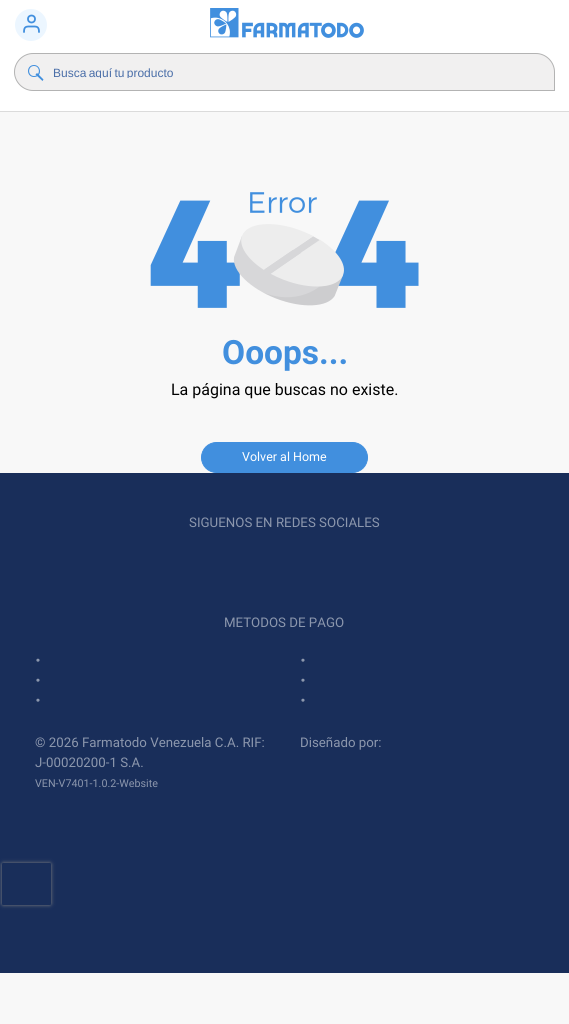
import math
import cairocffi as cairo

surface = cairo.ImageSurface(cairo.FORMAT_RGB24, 569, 1024)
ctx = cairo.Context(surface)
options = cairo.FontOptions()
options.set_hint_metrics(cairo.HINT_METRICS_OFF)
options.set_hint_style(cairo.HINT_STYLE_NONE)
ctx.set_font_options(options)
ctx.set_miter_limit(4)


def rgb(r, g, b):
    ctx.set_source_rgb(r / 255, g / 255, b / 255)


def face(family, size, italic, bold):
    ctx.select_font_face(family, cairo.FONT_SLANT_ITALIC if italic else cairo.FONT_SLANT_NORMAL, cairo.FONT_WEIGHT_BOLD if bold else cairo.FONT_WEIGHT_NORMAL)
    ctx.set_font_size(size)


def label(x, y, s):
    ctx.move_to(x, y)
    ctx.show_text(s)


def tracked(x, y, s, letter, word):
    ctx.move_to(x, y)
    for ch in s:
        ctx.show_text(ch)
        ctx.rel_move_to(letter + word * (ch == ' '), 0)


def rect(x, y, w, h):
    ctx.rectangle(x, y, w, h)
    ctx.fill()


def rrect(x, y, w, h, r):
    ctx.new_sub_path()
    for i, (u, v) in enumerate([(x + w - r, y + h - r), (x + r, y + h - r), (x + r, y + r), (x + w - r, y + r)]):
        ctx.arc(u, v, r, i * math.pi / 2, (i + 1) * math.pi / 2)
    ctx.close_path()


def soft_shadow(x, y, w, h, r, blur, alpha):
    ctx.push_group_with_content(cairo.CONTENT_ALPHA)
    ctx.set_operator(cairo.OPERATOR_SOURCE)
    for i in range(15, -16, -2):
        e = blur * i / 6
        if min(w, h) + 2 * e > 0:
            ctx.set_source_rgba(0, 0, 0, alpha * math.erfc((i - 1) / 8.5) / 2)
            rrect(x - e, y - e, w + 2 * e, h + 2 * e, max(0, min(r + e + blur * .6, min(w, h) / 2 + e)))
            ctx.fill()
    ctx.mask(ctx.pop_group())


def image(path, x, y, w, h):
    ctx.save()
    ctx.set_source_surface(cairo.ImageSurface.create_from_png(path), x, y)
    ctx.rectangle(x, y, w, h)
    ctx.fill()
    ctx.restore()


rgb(248, 248, 248)
ctx.paint()
rgb(255, 255, 255)
rect(0, 0, 569, 111)
rgb(236, 246, 255)
ctx.arc(31, 25, 16, 0, 2 * math.pi)
ctx.fill()
ctx.arc(31.5, 19, 3.5, 0, 2 * math.pi)
rgb(65, 143, 222)
ctx.set_line_width(1.8)
ctx.stroke()
ctx.new_path()
ctx.move_to(39, 32)
ctx.curve_to(39, 26, 36.5, 26.5, 31.5, 26.5)
ctx.curve_to(26.5, 26.5, 24, 26, 24, 32)
ctx.set_line_cap(cairo.LINE_CAP_ROUND)
ctx.set_line_join(cairo.LINE_JOIN_ROUND)
ctx.stroke()
image('image0.png', 210, 8, 154, 30)
rgb(241, 240, 240)
ctx.new_path()
ctx.move_to(33, 53.5)
ctx.line_to(536, 53.5)
ctx.curve_to(546, 53.5, 554.5, 62, 554.5, 72)
ctx.line_to(554.5, 90.5)
ctx.line_to(33, 90.5)
ctx.curve_to(23, 90.5, 14.5, 82, 14.5, 72)
ctx.curve_to(14.5, 62, 23, 53.5, 33, 53.5)
ctx.close_path()
ctx.fill_preserve()
rgb(179, 179, 179)
ctx.set_line_width(1)
ctx.set_line_cap(cairo.LINE_CAP_BUTT)
ctx.set_line_join(cairo.LINE_JOIN_MITER)
ctx.stroke()
rgb(65, 143, 222)
ctx.set_fill_rule(cairo.FILL_RULE_EVEN_ODD)
ctx.new_path()
ctx.move_to(34, 65)
ctx.curve_to(41.5, 65, 42.5, 77, 34, 77)
ctx.curve_to(26, 77, 26, 65, 34, 65)
ctx.close_path()
ctx.move_to(34, 66)
ctx.curve_to(27.5, 66, 27.5, 76, 34, 76)
ctx.curve_to(40.5, 76, 40.5, 66, 34, 66)
ctx.close_path()
ctx.fill()
ctx.set_fill_rule(cairo.FILL_RULE_WINDING)
ctx.new_path()
ctx.move_to(37, 73)
ctx.line_to(43.5, 79.5)
ctx.line_to(42.5, 81)
ctx.line_to(35.5, 74.5)
ctx.close_path()
ctx.fill()
ctx.save()
ctx.rectangle(53, 66, 436, 12)
ctx.clip()
face('Liberation Sans', 12, 0, 0)
rgb(74, 110, 168)
tracked(53, 77, 'Busca aquí tu producto', 0, -1)
ctx.restore()
rgb(219, 219, 219)
rect(0, 111, 569, 1)
image('image1.png', 150, 192, 269, 116)
face('Roboto', 33.5, 0, 1)
rgb(65, 143, 222)
label(222, 364, 'Ooops...')
face('Roboto', 16, 0, 0)
rgb(0, 0, 0)
label(171, 395, 'La página que buscas no existe.')
rgb(65, 143, 222)
rrect(201.5, 442.5, 166, 30, 15)
ctx.fill_preserve()
ctx.stroke()
face('Roboto', 12.5, 0, 0)
rgb(255, 255, 255)
label(242, 461, 'Volver al Home')
rgb(25, 46, 90)
rect(0, 473, 569, 500)
face('Roboto', 13.3, 0, 0)
rgb(140, 151, 173)
label(189, 527, 'SIGUENOS EN REDES SOCIALES')
label(224, 627, 'METODOS DE PAGO')
face('Roboto', 20, 0, 1)
label(35, 667, '·')
label(300, 667, '·')
label(35, 687, '·')
label(300, 687, '·')
label(35, 707, '·')
label(300, 707, '·')
face('Roboto', 13.3, 0, 0)
label(35, 747, '© 2026 Farmatodo Venezuela C.A. RIF:')
label(35, 767, 'J-00020200-1 S.A.')
face('Roboto', 10.75, 0, 0)
label(35, 787, 'VEN-V7401-1.0.2-Website')
face('Roboto', 13.3, 0, 0)
label(300, 747, 'Diseñado por:')
ctx.save()
ctx.set_fill_rule(cairo.FILL_RULE_EVEN_ODD)
ctx.new_path()
ctx.move_to(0, 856)
ctx.line_to(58, 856)
ctx.line_to(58, 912)
ctx.line_to(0, 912)
ctx.close_path()
ctx.move_to(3.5, 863)
ctx.line_to(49.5, 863)
ctx.curve_to(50.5, 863, 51, 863.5, 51, 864.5)
ctx.line_to(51, 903.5)
ctx.curve_to(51, 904.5, 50.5, 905, 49.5, 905)
ctx.line_to(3.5, 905)
ctx.curve_to(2.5, 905, 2, 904.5, 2, 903.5)
ctx.line_to(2, 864.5)
ctx.curve_to(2, 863.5, 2.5, 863, 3.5, 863)
ctx.close_path()
ctx.clip()
rgb(128, 128, 128)
soft_shadow(2, 863, 49, 42, 1.5, 2, 1)
ctx.restore()
surface.write_to_png('render.png')
